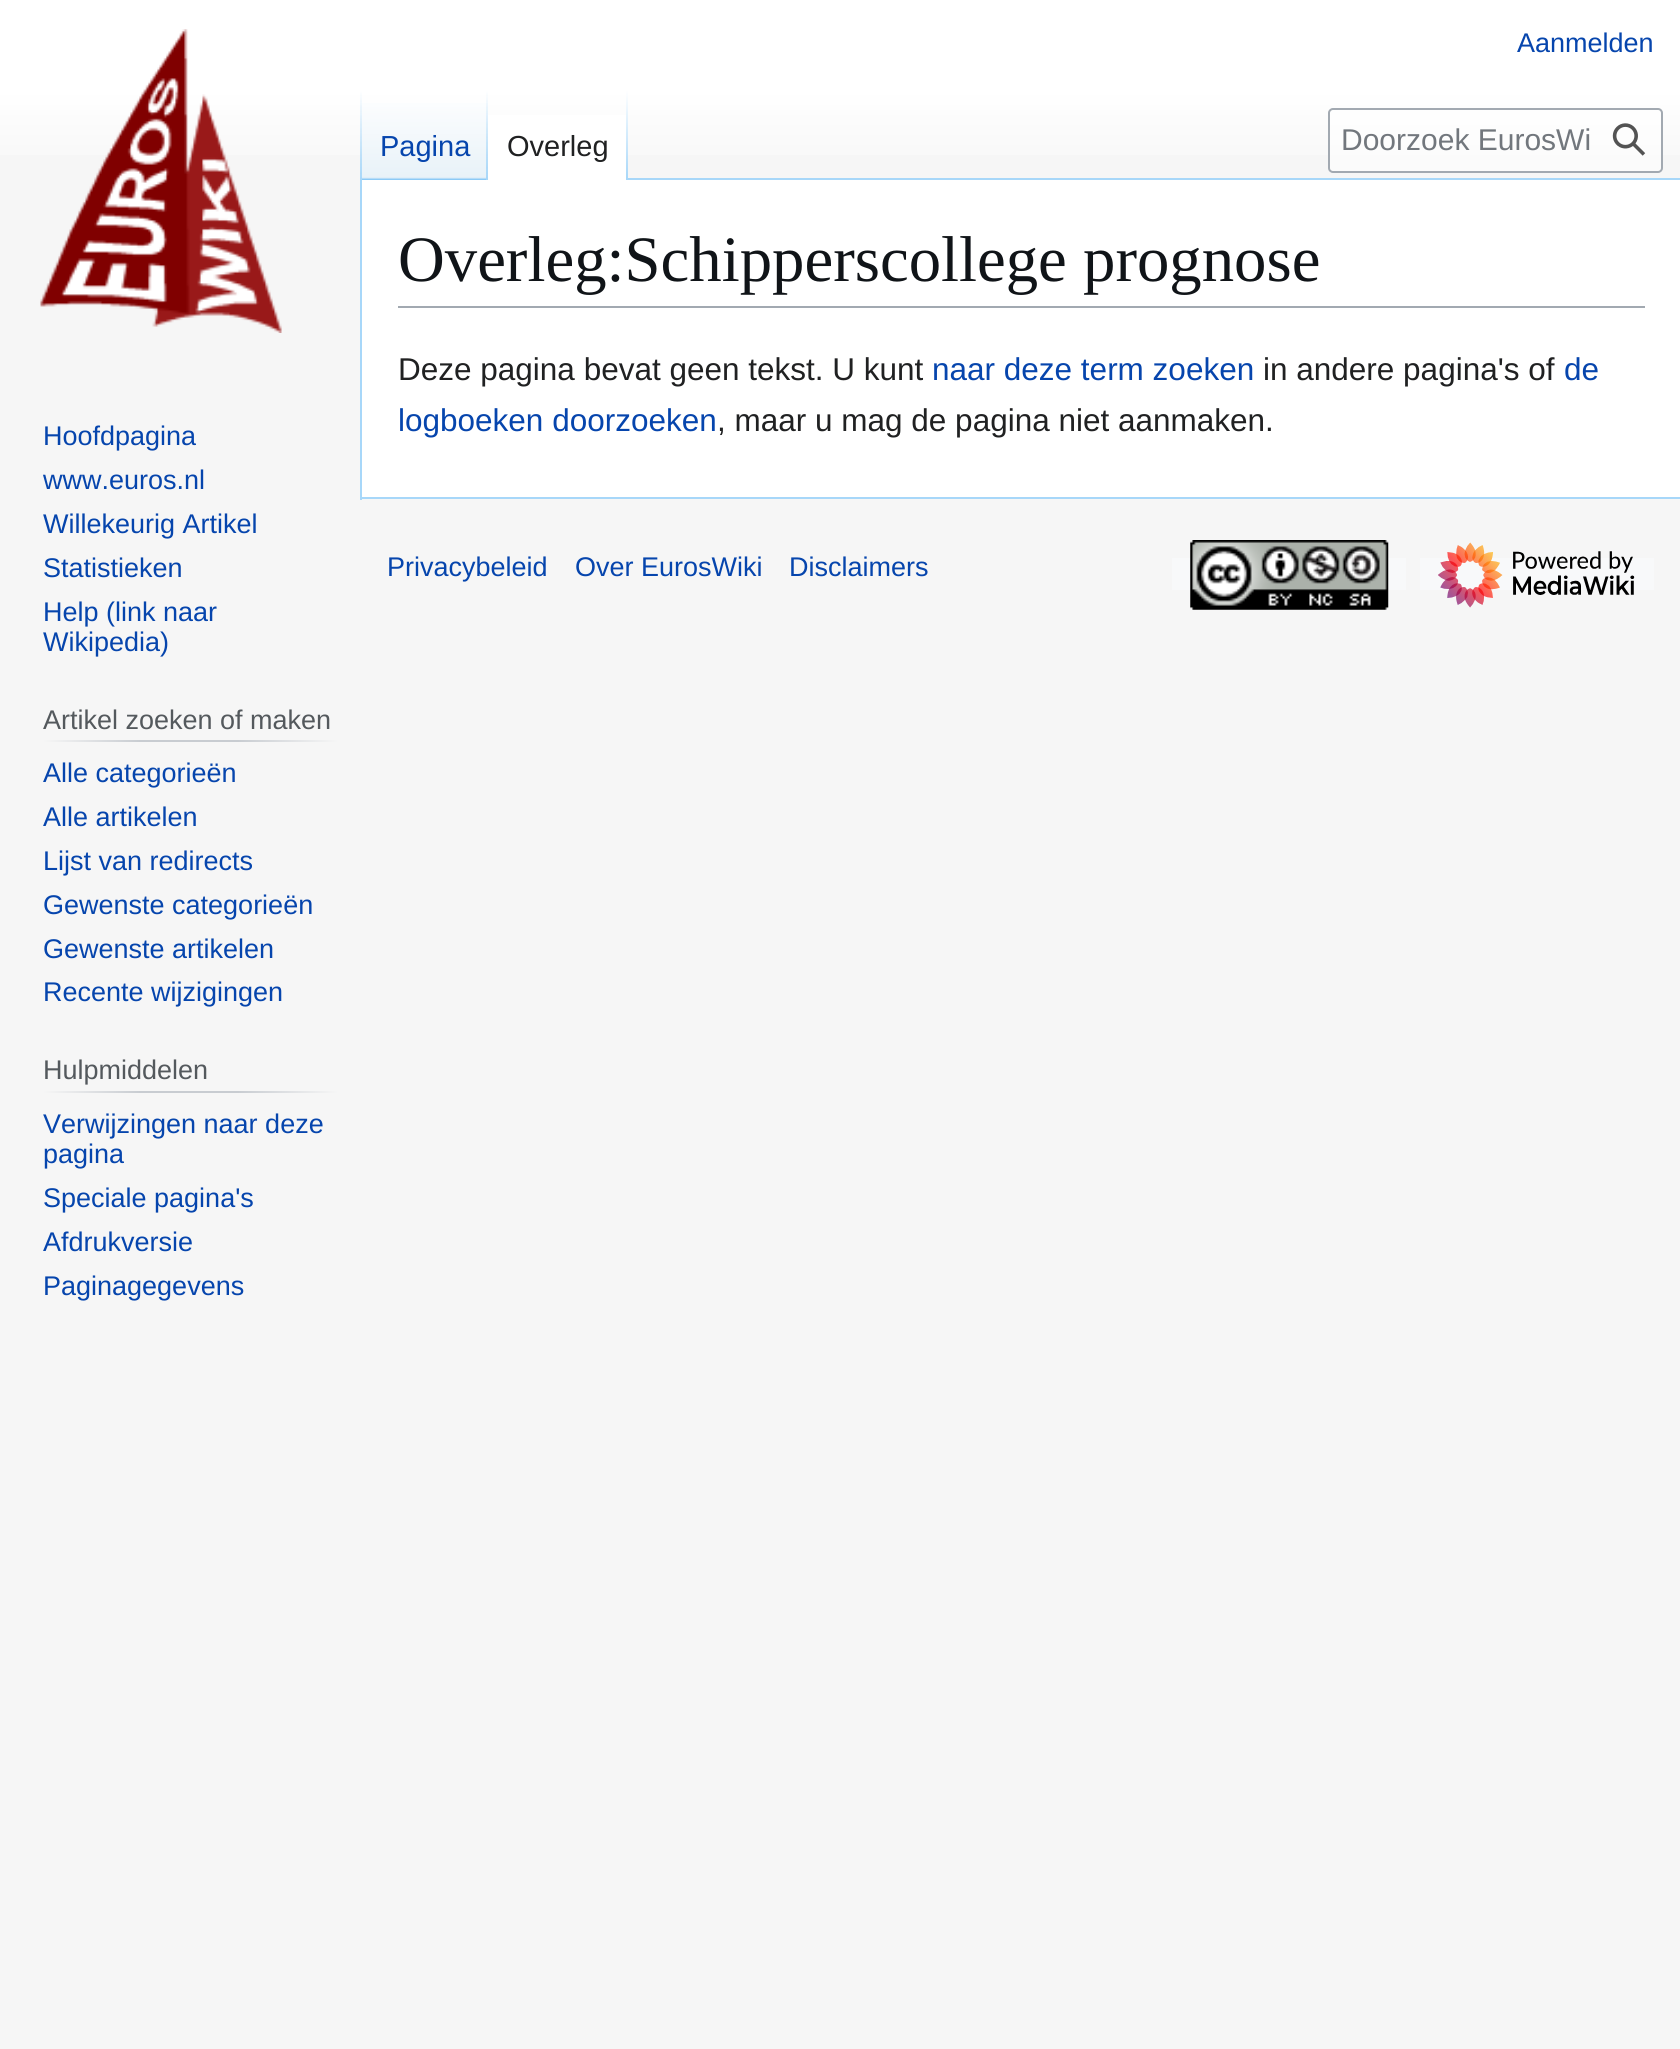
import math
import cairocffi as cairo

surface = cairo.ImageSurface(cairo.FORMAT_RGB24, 1680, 2049)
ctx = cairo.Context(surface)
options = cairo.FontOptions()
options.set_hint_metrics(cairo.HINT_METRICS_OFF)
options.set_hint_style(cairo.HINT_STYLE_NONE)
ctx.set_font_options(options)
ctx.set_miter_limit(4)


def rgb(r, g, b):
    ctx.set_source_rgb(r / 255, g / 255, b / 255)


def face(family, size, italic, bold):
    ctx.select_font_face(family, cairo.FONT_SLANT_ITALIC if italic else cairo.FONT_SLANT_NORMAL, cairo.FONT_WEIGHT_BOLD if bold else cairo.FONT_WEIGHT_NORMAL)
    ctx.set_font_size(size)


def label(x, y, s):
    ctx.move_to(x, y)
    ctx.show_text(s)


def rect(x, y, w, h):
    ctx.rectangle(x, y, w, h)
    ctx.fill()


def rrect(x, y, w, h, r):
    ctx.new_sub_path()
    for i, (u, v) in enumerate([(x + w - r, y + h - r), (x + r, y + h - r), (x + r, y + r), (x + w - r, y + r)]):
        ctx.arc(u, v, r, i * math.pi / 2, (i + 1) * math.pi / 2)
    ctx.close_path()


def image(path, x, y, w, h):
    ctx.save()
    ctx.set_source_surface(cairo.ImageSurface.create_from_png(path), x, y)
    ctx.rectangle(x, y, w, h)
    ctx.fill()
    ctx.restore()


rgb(246, 246, 246)
ctx.paint()
gradient = cairo.LinearGradient(840, 0, 840, 180)
gradient.add_color_stop_rgba(0.5, 1, 1, 1, 1)
gradient.add_color_stop_rgba(1, 0.965, 0.965, 0.965, 1)
ctx.set_source(gradient)
rect(0, 0, 1680, 155)
face('Liberation Sans', 27, 0, 0)
rgb(6, 69, 173)
label(1517, 52, 'Aanmelden')
rgb(167, 215, 249)
rect(360, 497, 1320, 2)
rect(360, 178, 2, 322)
gradient = cairo.LinearGradient(361, 90, 361, 180)
gradient.add_color_stop_rgba(0, 0.655, 0.843, 0.976, 0)
gradient.add_color_stop_rgba(1, 0.655, 0.843, 0.976, 1)
ctx.set_source(gradient)
rect(360, 90, 2, 90)
gradient = cairo.LinearGradient(425, 180, 425, 90)
gradient.add_color_stop_rgba(0, 0.467, 0.757, 0.965, 1)
gradient.add_color_stop_rgba(0.03, 0.91, 0.949, 0.973, 1)
gradient.add_color_stop_rgba(1, 1, 1, 1, 1)
ctx.set_source(gradient)
rect(362, 103, 126, 77)
gradient = cairo.LinearGradient(487, 90, 487, 180)
gradient.add_color_stop_rgba(0, 0.655, 0.843, 0.976, 0)
gradient.add_color_stop_rgba(1, 0.655, 0.843, 0.976, 1)
ctx.set_source(gradient)
rect(486, 90, 2, 90)
face('Liberation Sans', 29, 0, 0)
rgb(6, 69, 173)
label(380, 156, 'Pagina')
rgb(255, 255, 255)
rect(488, 115, 138, 65)
gradient = cairo.LinearGradient(627, 90, 627, 180)
gradient.add_color_stop_rgba(0, 1, 1, 1, 1)
gradient.add_color_stop_rgba(1, 0.655, 0.843, 0.976, 1)
ctx.set_source(gradient)
rect(626, 90, 2, 90)
rgb(32, 33, 34)
label(507, 156, 'Overleg')
ctx.set_source_rgba(1, 1, 1, 0.5)
rrect(1329, 109, 333, 63, 4)
ctx.fill_preserve()
rgb(162, 169, 177)
ctx.stroke()
face('Liberation Sans', 30, 0, 0)
rgb(114, 119, 125)
label(1341, 150, 'Doorzoek EurosWi')
image('image0.png', 1612, 123, 34, 33)
image('image1.png', 40, 29, 242, 304)
face('Liberation Sans', 27, 0, 0)
rgb(6, 69, 173)
label(43, 445, 'Hoofdpagina')
label(43, 489, 'www.euros.nl')
label(43, 533, 'Willekeurig Artikel')
label(43, 577, 'Statistieken')
label(43, 621, 'Help (link naar')
label(43, 651, 'Wikipedia)')
gradient = cairo.LinearGradient(43, 741, 338, 741)
gradient.add_color_stop_rgba(0, 0.965, 0.965, 0.965, 1)
gradient.add_color_stop_rgba(0.33, 0.784, 0.8, 0.82, 1)
gradient.add_color_stop_rgba(0.66, 0.784, 0.8, 0.82, 1)
gradient.add_color_stop_rgba(1, 0.965, 0.965, 0.965, 1)
ctx.set_source(gradient)
rect(43, 740, 295, 2)
rgb(84, 89, 93)
label(43, 729, 'Artikel zoeken of maken')
rgb(6, 69, 173)
label(43, 782, 'Alle categorieën')
label(43, 826, 'Alle artikelen')
label(43, 870, 'Lijst van redirects')
label(43, 914, 'Gewenste categorieën')
label(43, 958, 'Gewenste artikelen')
label(43, 1001, 'Recente wijzigingen')
gradient = cairo.LinearGradient(43, 1092, 338, 1092)
gradient.add_color_stop_rgba(0, 0.965, 0.965, 0.965, 1)
gradient.add_color_stop_rgba(0.33, 0.784, 0.8, 0.82, 1)
gradient.add_color_stop_rgba(0.66, 0.784, 0.8, 0.82, 1)
gradient.add_color_stop_rgba(1, 0.965, 0.965, 0.965, 1)
ctx.set_source(gradient)
rect(43, 1091, 295, 2)
rgb(84, 89, 93)
label(43, 1079, 'Hulpmiddelen')
rgb(6, 69, 173)
label(43, 1133, 'Verwijzingen naar deze')
label(43, 1163, 'pagina')
label(43, 1207, 'Speciale pagina\'s')
label(43, 1251, 'Afdrukversie')
label(43, 1295, 'Paginagegevens')
rgb(255, 255, 255)
rect(362, 180, 1318, 317)
rgb(167, 215, 249)
rect(628, 178, 1052, 2)
rgb(162, 169, 177)
rect(398, 306, 1247, 2)
face('Liberation Serif', 64.75, 0, 0)
rgb(16, 20, 24)
label(398, 281, 'Overleg:Schipperscollege prognose')
face('Liberation Sans', 31.5, 0, 0)
rgb(32, 33, 34)
label(398, 380, 'Deze pagina bevat geen tekst. U kunt')
rgb(6, 69, 173)
label(932, 380, 'naar deze term zoeken')
rgb(32, 33, 34)
label(1263, 380, 'in andere pagina\'s of')
rgb(6, 69, 173)
label(1564, 380, 'de')
label(398, 431, 'logboeken doorzoeken')
rgb(32, 33, 34)
label(717, 431, ', maar u mag de pagina niet aanmaken.')
face('Liberation Sans', 27, 0, 0)
rgb(6, 69, 173)
label(387, 576, 'Privacybeleid')
label(575, 576, 'Over EurosWiki')
label(789, 576, 'Disclaimers')
rgb(248, 249, 250)
rect(1172, 558, 234, 32)
image('image2.png', 1190, 540, 199, 70)
rect(1420, 558, 234, 32)
image('image3.png', 1438, 542, 197, 66)
surface.write_to_png('render.png')
